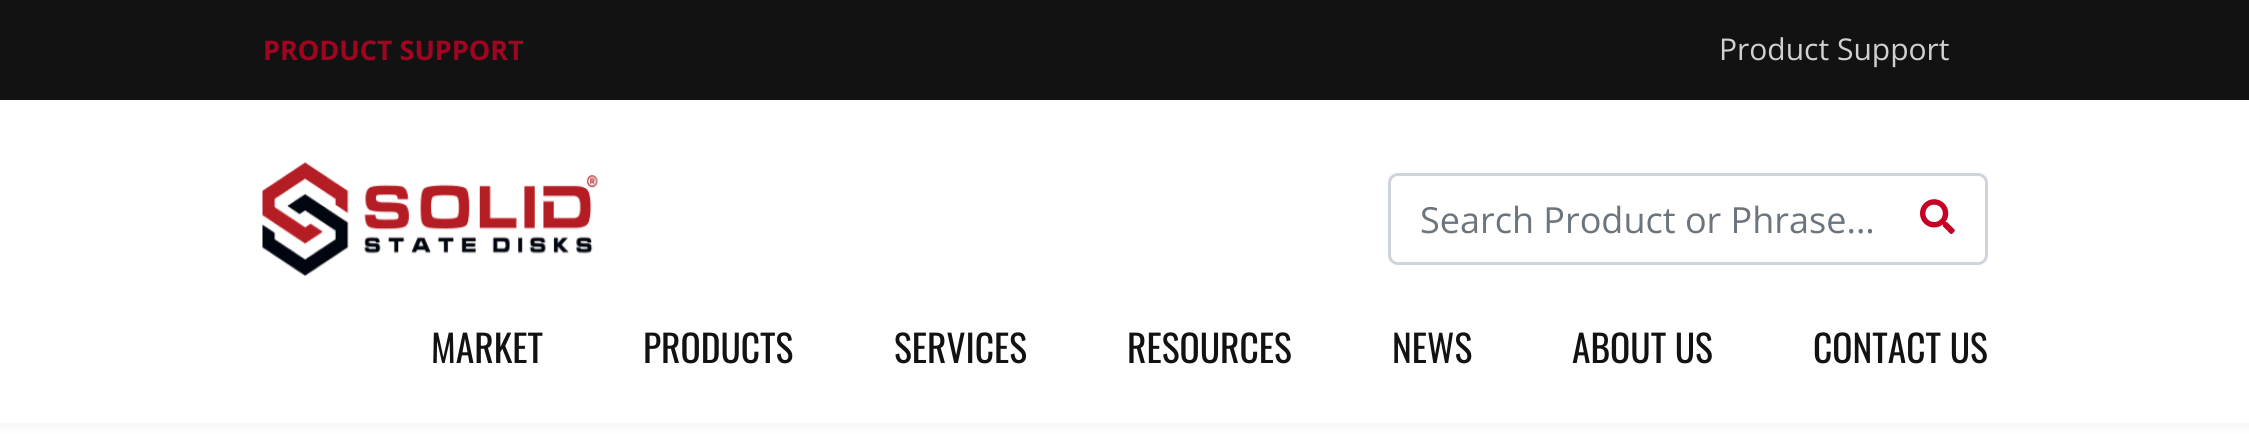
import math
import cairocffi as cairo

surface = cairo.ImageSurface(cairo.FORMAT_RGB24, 2249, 434)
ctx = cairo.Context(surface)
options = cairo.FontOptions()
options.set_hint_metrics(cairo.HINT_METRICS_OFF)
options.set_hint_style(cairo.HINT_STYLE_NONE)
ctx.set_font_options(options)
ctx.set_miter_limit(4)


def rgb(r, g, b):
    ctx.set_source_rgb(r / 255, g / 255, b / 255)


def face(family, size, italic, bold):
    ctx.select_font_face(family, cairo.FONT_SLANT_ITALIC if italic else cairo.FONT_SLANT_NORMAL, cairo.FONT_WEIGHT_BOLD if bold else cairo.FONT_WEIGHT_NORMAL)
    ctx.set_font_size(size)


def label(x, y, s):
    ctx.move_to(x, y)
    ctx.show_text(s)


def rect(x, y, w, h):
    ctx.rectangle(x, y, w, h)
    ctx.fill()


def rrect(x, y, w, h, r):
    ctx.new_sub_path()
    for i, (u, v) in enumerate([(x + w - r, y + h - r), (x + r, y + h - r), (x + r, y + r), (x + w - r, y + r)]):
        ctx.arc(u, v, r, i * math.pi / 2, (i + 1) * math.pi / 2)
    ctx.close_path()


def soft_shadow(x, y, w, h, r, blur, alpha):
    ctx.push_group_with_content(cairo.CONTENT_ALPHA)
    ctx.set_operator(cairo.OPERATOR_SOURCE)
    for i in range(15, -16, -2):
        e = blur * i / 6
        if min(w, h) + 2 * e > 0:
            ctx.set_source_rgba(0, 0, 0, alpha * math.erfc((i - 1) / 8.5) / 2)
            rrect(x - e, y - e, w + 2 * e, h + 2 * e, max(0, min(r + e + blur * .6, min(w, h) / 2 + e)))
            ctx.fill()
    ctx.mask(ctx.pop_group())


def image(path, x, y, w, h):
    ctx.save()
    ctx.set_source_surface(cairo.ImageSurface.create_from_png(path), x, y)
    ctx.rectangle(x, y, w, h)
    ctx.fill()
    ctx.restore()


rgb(255, 255, 255)
ctx.paint()
rgb(18, 18, 18)
rect(0, 0, 2249, 100)
face('Open Sans', 27, 0, 1)
rgb(161, 4, 32)
label(263, 60, 'PRODUCT SUPPORT')
face('Open Sans', 30, 0, 0)
rgb(208, 208, 208)
label(1719, 60, 'Product Support')
rgb(0, 0, 0)
soft_shadow(0, 105, 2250, 323, 0, 5, 0.04)
rgb(255, 255, 255)
rect(0, 102, 2249, 321)
image('image0.png', 262, 162, 336, 114)
rrect(1389.5, 174.5, 597, 89, 8.5)
rgb(206, 212, 218)
ctx.set_line_width(3)
ctx.stroke()
face('Open Sans', 36, 0, 0)
rgb(108, 117, 125)
label(1420, 233, 'Search Product or Phrase...')
image('image1.png', 1920, 199, 35, 35)
face('Oswald', 37.5, 0, 0)
rgb(18, 18, 18)
label(431, 363, 'MARKET')
label(643, 363, 'PRODUCTS')
label(894, 363, 'SERVICES')
label(1127, 363, 'RESOURCES')
label(1392, 363, 'NEWS')
label(1572, 363, 'ABOUT US')
label(1813, 363, 'CONTACT US')
surface.write_to_png('render.png')
